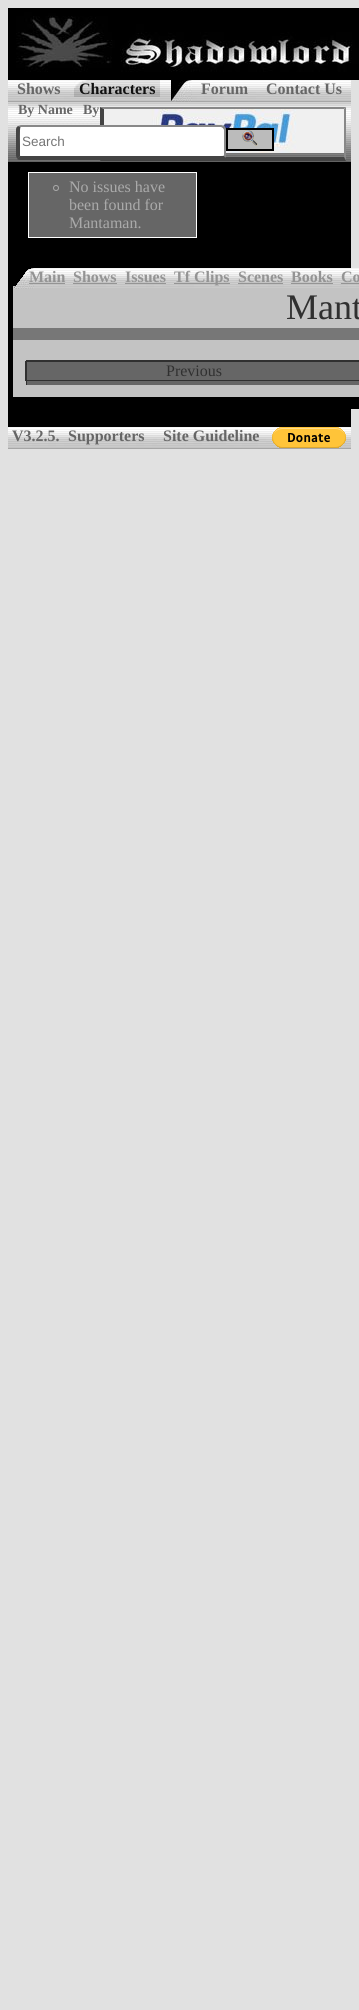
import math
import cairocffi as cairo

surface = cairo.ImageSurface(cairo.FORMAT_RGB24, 359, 2010)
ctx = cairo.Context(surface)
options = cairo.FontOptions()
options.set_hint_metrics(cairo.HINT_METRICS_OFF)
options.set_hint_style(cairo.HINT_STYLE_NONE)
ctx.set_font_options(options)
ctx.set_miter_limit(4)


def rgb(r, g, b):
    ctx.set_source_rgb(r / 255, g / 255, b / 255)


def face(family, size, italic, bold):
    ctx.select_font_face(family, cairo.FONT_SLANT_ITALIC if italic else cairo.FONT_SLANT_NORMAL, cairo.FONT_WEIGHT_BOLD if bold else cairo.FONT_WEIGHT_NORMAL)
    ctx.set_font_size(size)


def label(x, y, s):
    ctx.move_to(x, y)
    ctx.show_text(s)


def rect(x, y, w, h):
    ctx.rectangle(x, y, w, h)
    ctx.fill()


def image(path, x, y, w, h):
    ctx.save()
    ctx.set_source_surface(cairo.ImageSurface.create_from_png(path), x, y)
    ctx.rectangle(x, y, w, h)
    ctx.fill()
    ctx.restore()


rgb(225, 225, 225)
ctx.paint()
rgb(0, 0, 0)
rect(8, 8, 343, 419)
image('image0.png', 16, 8, 343, 72)
image('image1.png', 8, 80, 62, 22)
face('Liberation Serif', 16, 0, 1)
rgb(102, 102, 102)
label(17, 94, 'Shows')
image('image2.png', 70, 80, 94, 22)
image('image3.png', 74, 80, 86, 17)
rgb(17, 17, 17)
label(79, 94, 'Characters')
image('image4.png', 164, 80, 60, 22)
image('image5.png', 224, 80, 33, 22)
image('image6.png', 171, 80, 21, 22)
image('image7.png', 192, 82, 65, 13)
rgb(102, 102, 102)
label(201, 94, 'Forum')
image('image8.png', 257, 80, 94, 22)
label(266, 94, 'Contact Us')
image('image9.png', 8, 102, 343, 60)
face('Liberation Serif', 14, 0, 1)
label(18, 114, 'By Name')
label(83, 114, 'By')
rgb(136, 136, 136)
ctx.new_path()
ctx.move_to(100, 107)
ctx.line_to(346, 107)
ctx.line_to(344, 109)
ctx.line_to(104, 109)
ctx.close_path()
ctx.fill()
ctx.new_path()
ctx.move_to(346, 107)
ctx.line_to(346, 161)
ctx.line_to(344, 157)
ctx.line_to(344, 109)
ctx.close_path()
ctx.fill()
rgb(68, 68, 68)
ctx.new_path()
ctx.move_to(346, 161)
ctx.line_to(100, 161)
ctx.line_to(104, 157)
ctx.line_to(344, 157)
ctx.close_path()
ctx.fill()
ctx.new_path()
ctx.move_to(100, 161)
ctx.line_to(100, 107)
ctx.line_to(104, 109)
ctx.line_to(104, 157)
ctx.close_path()
ctx.fill()
image('image10.png', 104, 109, 240, 44)
rgb(255, 255, 255)
ctx.new_path()
ctx.move_to(21, 127)
ctx.line_to(221, 127)
ctx.curve_to(223, 127, 224, 128, 224, 130)
ctx.line_to(224, 155)
ctx.curve_to(224, 156, 223, 156, 221, 156)
ctx.line_to(21, 156)
ctx.curve_to(20, 156, 20, 156, 20, 155)
ctx.line_to(20, 130)
ctx.curve_to(20, 128, 20, 127, 21, 127)
ctx.close_path()
ctx.fill()
rgb(136, 136, 136)
ctx.new_path()
ctx.move_to(21, 125)
ctx.line_to(18, 126)
ctx.line_to(20, 127)
ctx.line_to(221, 127)
ctx.line_to(223, 128)
ctx.line_to(225, 126)
ctx.curve_to(224, 126, 222, 125, 221, 125)
ctx.close_path()
ctx.fill()
ctx.new_path()
ctx.move_to(226, 155)
ctx.line_to(226, 130)
ctx.curve_to(226, 128.5, 225.5, 127, 224.5, 126.5)
ctx.line_to(223, 128)
ctx.line_to(224, 129.5)
ctx.line_to(224, 155.5)
ctx.line_to(225, 158)
ctx.curve_to(225.5, 157.5, 226, 156, 226, 155)
ctx.close_path()
ctx.fill()
rgb(68, 68, 68)
ctx.new_path()
ctx.move_to(21, 160)
ctx.line_to(221, 160)
ctx.curve_to(223, 160, 224, 159, 225, 158)
ctx.line_to(224, 156)
ctx.line_to(222, 156)
ctx.line_to(20, 156)
ctx.line_to(17, 159)
ctx.curve_to(18, 160, 20, 160, 21, 160)
ctx.close_path()
ctx.fill()
ctx.new_path()
ctx.move_to(16, 130)
ctx.line_to(16, 155)
ctx.curve_to(16, 156.5, 16.5, 158, 17.5, 158.5)
ctx.line_to(20, 156)
ctx.line_to(20, 146.5)
ctx.curve_to(20, 144.5, 19.5, 128, 20.5, 127)
ctx.line_to(18, 126)
ctx.curve_to(16.5, 127, 16, 128, 16, 130)
ctx.close_path()
ctx.fill()
face('Liberation Sans', 13.5, 0, 0)
rgb(117, 117, 117)
label(22, 146, 'Search')
rgb(187, 187, 187)
ctx.rectangle(227, 129, 46, 21)
ctx.fill_preserve()
rgb(0, 0, 0)
ctx.stroke()
image('image11.png', 242, 130, 16, 16)
rgb(102, 102, 102)
ctx.rectangle(28.5, 172.5, 168, 65)
ctx.fill_preserve()
rgb(255, 255, 255)
ctx.set_line_width(1)
ctx.stroke()
ctx.arc(56, 188, 2.5, 0, 2 * math.pi)
rgb(170, 170, 170)
ctx.stroke()
face('Liberation Serif', 16, 0, 0)
label(69, 192, 'No issues have')
label(69, 210, 'been found for')
label(69, 228, 'Mantaman.')
rgb(195, 195, 195)
rect(13, 286, 346, 42)
image('image12.png', 14, 268, 345, 21)
face('Liberation Serif', 16, 0, 1)
rgb(148, 148, 148)
label(29, 282, 'Main')
rect(29, 283, 36, 1)
label(73, 282, 'Shows')
rect(73, 283, 44, 1)
label(125, 282, 'Issues')
rect(125, 283, 41, 1)
rect(174, 283, 56, 1)
label(174, 282, 'Tf Clips')
label(238, 282, 'Scenes')
rect(238, 283, 45, 1)
label(291, 282, 'Books')
rect(291, 283, 42, 1)
label(341, 282, 'Co')
rect(341, 283, 18, 1)
face('Liberation Serif', 36, 0, 0)
rgb(48, 48, 48)
label(286, 319, 'Mant')
rgb(195, 195, 195)
rect(13, 340, 346, 57)
rgb(119, 119, 119)
rect(13, 328, 346, 12)
rgb(0, 0, 0)
rect(351, 397, 8, 12)
rgb(102, 102, 102)
rect(27, 362, 332, 23)
rgb(48, 48, 48)
rect(26, 360, 333, 1)
rect(26, 360, 1, 25)
ctx.rectangle(25.5, 361.5, 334, 19)
ctx.stroke()
face('Liberation Serif', 16, 0, 0)
label(166, 376, 'Previous')
image('image13.png', 8, 427, 343, 22)
face('Liberation Serif', 16, 0, 1)
rgb(102, 102, 102)
label(12, 441, 'V3.2.5.')
image('image14.png', 60, 430, 93, 12)
label(68, 441, 'Supporters')
image('image15.png', 157, 429, 80, 16)
label(163, 441, 'Site Guideline')
image('image16.png', 272, 427, 74, 21)
surface.write_to_png('render.png')
